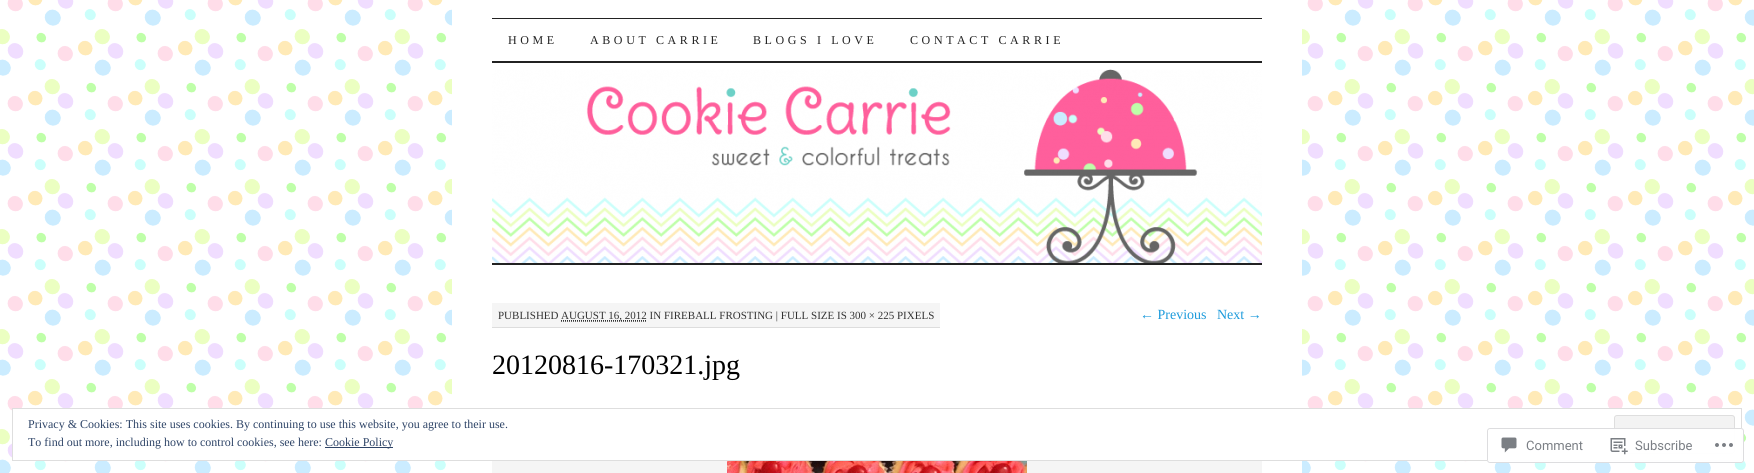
import math
import cairocffi as cairo

surface = cairo.ImageSurface(cairo.FORMAT_RGB24, 1754, 473)
ctx = cairo.Context(surface)
options = cairo.FontOptions()
options.set_hint_metrics(cairo.HINT_METRICS_OFF)
options.set_hint_style(cairo.HINT_STYLE_NONE)
ctx.set_font_options(options)
ctx.set_miter_limit(4)


def rgb(r, g, b):
    ctx.set_source_rgb(r / 255, g / 255, b / 255)


def face(family, size, italic, bold):
    ctx.select_font_face(family, cairo.FONT_SLANT_ITALIC if italic else cairo.FONT_SLANT_NORMAL, cairo.FONT_WEIGHT_BOLD if bold else cairo.FONT_WEIGHT_NORMAL)
    ctx.set_font_size(size)


def label(x, y, s):
    ctx.move_to(x, y)
    ctx.show_text(s)


def tracked(x, y, s, letter, word):
    ctx.move_to(x, y)
    for ch in s:
        ctx.show_text(ch)
        ctx.rel_move_to(letter + word * (ch == ' '), 0)


def rect(x, y, w, h):
    ctx.rectangle(x, y, w, h)
    ctx.fill()


def rrect(x, y, w, h, r):
    ctx.new_sub_path()
    for i, (u, v) in enumerate([(x + w - r, y + h - r), (x + r, y + h - r), (x + r, y + r), (x + w - r, y + r)]):
        ctx.arc(u, v, r, i * math.pi / 2, (i + 1) * math.pi / 2)
    ctx.close_path()


def image(path, x, y, w, h):
    ctx.save()
    ctx.set_source_surface(cairo.ImageSurface.create_from_png(path), x, y)
    ctx.rectangle(x, y, w, h)
    ctx.fill()
    ctx.restore()


rgb(255, 255, 255)
ctx.paint()
image('image0.png', 0, 0, 1754, 473)
rgb(255, 255, 255)
rect(452, 0, 850, 473)
rgb(34, 34, 34)
rect(492, 18, 770, 1)
rect(492, 61, 770, 2)
face('Liberation Serif', 12, 0, 0)
tracked(508, 44, 'HOME', 3.6, 0)
tracked(590, 44, 'ABOUT CARRIE', 3.6, 0)
tracked(753, 44, 'BLOGS I LOVE', 3.6, 0)
tracked(910, 44, 'CONTACT CARRIE', 3.6, 0)
image('image1.png', 492, 69, 770, 194)
rect(492, 263, 770, 2)
rgb(245, 245, 245)
rect(492, 303, 448, 24)
rgb(221, 221, 221)
rect(492, 327, 448, 1)
face('Liberation Serif', 11, 0, 0)
rgb(51, 51, 51)
label(498, 319, 'PUBLISHED')
ctx.new_path()
ctx.move_to(561, 321.5)
ctx.line_to(647, 321.5)
rgb(102, 102, 102)
ctx.set_line_width(1)
ctx.set_dash([1, 1])
ctx.stroke()
ctx.new_path()
ctx.move_to(561, 320.5)
ctx.line_to(647, 320.5)
rgb(51, 51, 51)
ctx.stroke()
label(561, 319, 'AUGUST 16, 2012 IN FIREBALL FROSTING | FULL SIZE IS 300 × 225 PIXELS')
face('Liberation Serif', 14, 0, 0)
rgb(28, 155, 220)
label(1140, 319, '← Previous')
label(1217, 319, 'Next →')
face('Liberation Serif', 28, 0, 0)
rgb(0, 0, 0)
label(492, 374, '20120816-170321.jpg')
rgb(245, 245, 245)
rect(492, 461, 770, 12)
image('image2.png', 727, 461, 300, 12)
rgb(255, 255, 255)
ctx.rectangle(12.5, 408.5, 1729, 52)
ctx.fill_preserve()
rgb(222, 222, 222)
ctx.set_dash([])
ctx.stroke()
face('Liberation Serif', 12, 0, 0)
rgb(46, 68, 103)
label(28, 428, 'Privacy & Cookies: This site uses cookies. By continuing to use this website, you agree to their use.')
rgb(243, 243, 243)
rrect(1614.5, 415.5, 120, 38, 2.5)
ctx.fill_preserve()
rgb(222, 222, 222)
ctx.stroke()
rgb(46, 68, 103)
label(28, 446, 'To find out more, including how to control cookies, see here:')
rect(325, 447, 68, 1)
label(325, 446, 'Cookie Policy')
ctx.set_source_rgba(1, 1, 1, 0.98)
rrect(1487, 428, 257, 35, 3)
ctx.fill()
rrect(1487.5, 428.5, 256, 34, 2.5)
ctx.set_source_rgba(0.863, 0.863, 0.871, 0.98)
ctx.stroke()
image('image3.png', 1501, 437, 16, 16)
face('Roboto', 13, 0, 0)
rgb(123, 127, 133)
label(1526, 450, 'Comment')
image('image4.png', 1610, 438, 18, 17)
label(1635, 450, 'Subscribe')
image('image5.png', 1715, 443, 18, 4)
surface.write_to_png('render.png')
